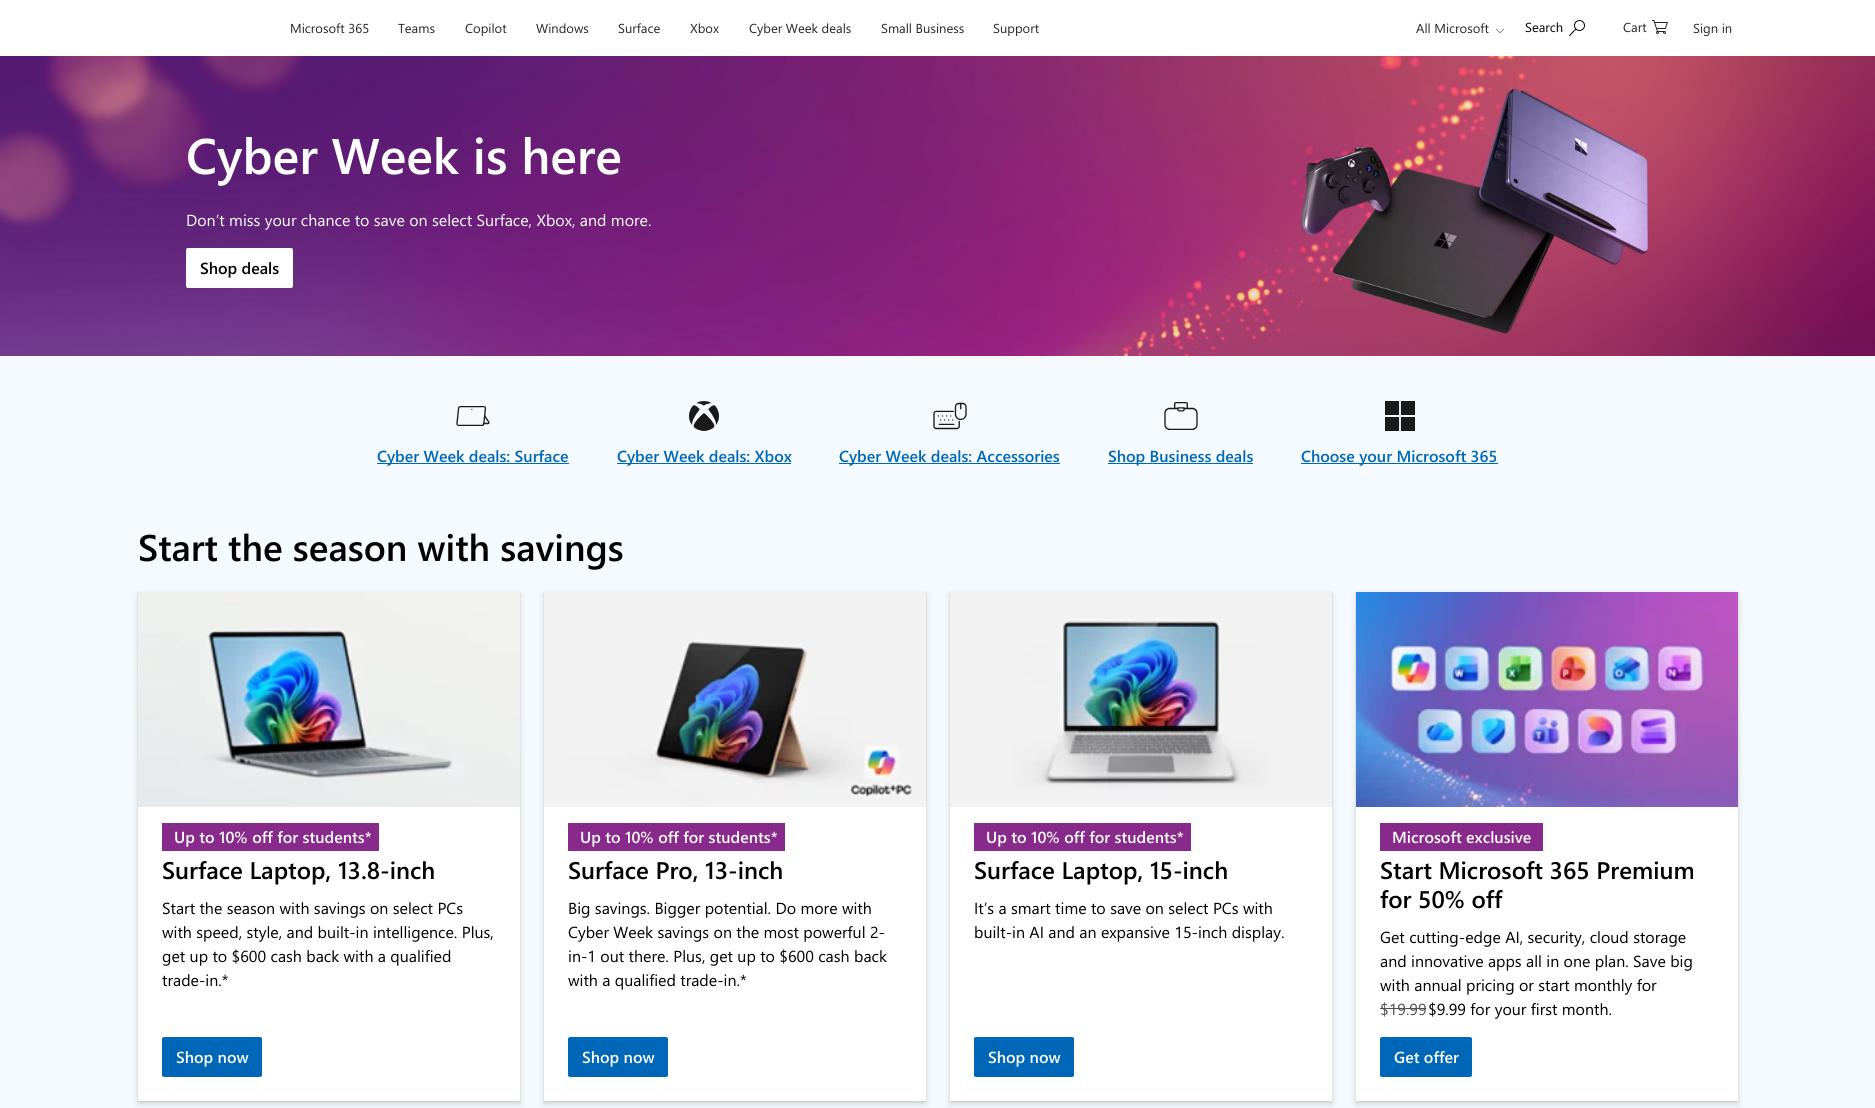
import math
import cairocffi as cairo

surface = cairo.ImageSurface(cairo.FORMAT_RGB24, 1875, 1108)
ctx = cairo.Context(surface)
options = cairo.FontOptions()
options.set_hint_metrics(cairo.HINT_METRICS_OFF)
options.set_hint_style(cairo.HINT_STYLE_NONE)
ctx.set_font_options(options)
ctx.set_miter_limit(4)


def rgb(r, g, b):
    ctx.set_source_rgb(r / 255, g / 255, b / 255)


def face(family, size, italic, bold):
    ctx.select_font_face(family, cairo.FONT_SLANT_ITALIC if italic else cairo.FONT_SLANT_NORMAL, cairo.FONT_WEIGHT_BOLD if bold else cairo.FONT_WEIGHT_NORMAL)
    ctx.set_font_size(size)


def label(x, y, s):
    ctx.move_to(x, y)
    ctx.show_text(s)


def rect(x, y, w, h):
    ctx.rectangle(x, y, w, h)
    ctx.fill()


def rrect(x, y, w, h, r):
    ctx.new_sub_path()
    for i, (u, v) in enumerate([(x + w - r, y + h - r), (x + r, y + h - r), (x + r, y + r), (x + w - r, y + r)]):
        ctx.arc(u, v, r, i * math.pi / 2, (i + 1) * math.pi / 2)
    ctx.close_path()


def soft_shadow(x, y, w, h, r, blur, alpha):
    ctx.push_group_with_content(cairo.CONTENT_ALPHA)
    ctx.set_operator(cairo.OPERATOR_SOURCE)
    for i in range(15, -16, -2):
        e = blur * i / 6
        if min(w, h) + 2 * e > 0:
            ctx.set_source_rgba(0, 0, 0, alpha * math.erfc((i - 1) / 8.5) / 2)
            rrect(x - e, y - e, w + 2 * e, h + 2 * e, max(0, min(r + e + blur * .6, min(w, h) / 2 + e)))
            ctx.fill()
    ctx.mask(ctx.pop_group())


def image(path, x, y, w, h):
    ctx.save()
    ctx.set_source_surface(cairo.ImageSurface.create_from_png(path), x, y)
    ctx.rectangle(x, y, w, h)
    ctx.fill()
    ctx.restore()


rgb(255, 255, 255)
ctx.paint()
face('Segoe UI', 13, 0, 0)
rgb(38, 38, 38)
label(290, 33, 'Microsoft 365')
label(398, 33, 'Teams')
label(465, 33, 'Copilot')
label(536, 33, 'Windows')
label(618, 33, 'Surface')
label(690, 33, 'Xbox')
label(749, 33, 'Cyber Week deals')
label(881, 33, 'Small Business')
label(993, 33, 'Support')
label(1416, 33, 'All Microsoft')
image('image0.png', 1496, 28, 8, 5)
rgb(0, 0, 0)
label(1525, 32, 'Search')
image('image1.png', 1569, 20, 16, 16)
rgb(38, 38, 38)
label(1623, 32, 'Cart')
image('image2.png', 1652, 20, 16, 14)
label(1693, 33, 'Sign in')
image('image3.png', 0, 56, 1875, 300)
face('Segoe UI SemiBold', 50, 0, 0)
rgb(255, 255, 255)
label(186, 174, 'Cyber Week is here')
face('Segoe UI', 16, 0, 0)
label(186, 226, 'Don’t miss your chance to save on select Surface, Xbox, and more.')
rrect(186, 248, 107, 40, 2)
ctx.fill()
face('Segoe UI SemiBold', 16, 0, 0)
rgb(0, 0, 0)
label(200, 274, 'Shop deals')
image('image4.png', 1300, 88, 349, 246)
rgb(244, 250, 253)
rect(0, 356, 1875, 752)
image('image5.png', 456, 406, 34, 20)
rgb(0, 103, 184)
rect(377, 463, 192, 1)
label(377, 462, 'Cyber Week deals: Surface')
image('image6.png', 689, 401, 30, 30)
rect(617, 463, 174, 1)
label(617, 462, 'Cyber Week deals: Xbox')
image('image7.png', 933, 402, 34, 28)
rect(839, 463, 221, 1)
label(839, 462, 'Cyber Week deals: Accessories')
image('image8.png', 1164, 402, 34, 28)
rect(1108, 463, 145, 1)
label(1108, 462, 'Shop Business deals')
image('image9.png', 1385, 401, 30, 30)
rect(1301, 463, 197, 1)
label(1301, 462, 'Choose your Microsoft 365')
face('Segoe UI SemiBold', 37, 0, 0)
rgb(0, 0, 0)
label(138, 561, 'Start the season with savings')
rgb(0, 0, 0)
soft_shadow(138, 593, 382, 509, 0, 1, 0.11)
soft_shadow(138, 595, 382, 509, 0, 3.5, 0.13)
rgb(255, 255, 255)
rect(138, 807, 382, 294)
image('image10.png', 138, 592, 382, 215)
rgb(136, 42, 139)
rect(162, 823, 217, 28)
face('Segoe UI SemiBold', 16, 0, 0)
rgb(255, 255, 255)
label(174, 843, 'Up to 10% off for students*')
face('Segoe UI SemiBold', 24, 0, 0)
rgb(0, 0, 0)
label(162, 879, 'Surface Laptop, 13.8-inch')
face('Segoe UI', 16, 0, 0)
label(162, 914, 'Start the season with savings on select PCs')
label(162, 938, 'with speed, style, and built-in intelligence. Plus,')
label(162, 962, 'get up to $600 cash back with a qualified')
label(162, 986, 'trade-in.*')
rgb(0, 103, 184)
rrect(162, 1037, 100, 40, 2)
ctx.fill()
face('Segoe UI SemiBold', 16, 0, 0)
rgb(255, 255, 255)
label(176, 1063, 'Shop now')
rgb(0, 0, 0)
soft_shadow(544, 593, 382, 509, 0, 1, 0.11)
soft_shadow(544, 595, 382, 509, 0, 3.5, 0.13)
rgb(255, 255, 255)
rect(544, 807, 382, 294)
image('image11.png', 544, 592, 382, 215)
rgb(136, 42, 139)
rect(568, 823, 217, 28)
rgb(255, 255, 255)
label(580, 843, 'Up to 10% off for students*')
face('Segoe UI SemiBold', 24, 0, 0)
rgb(0, 0, 0)
label(568, 879, 'Surface Pro, 13-inch')
face('Segoe UI', 16, 0, 0)
label(568, 914, 'Big savings. Bigger potential. Do more with')
label(568, 938, 'Cyber Week savings on the most powerful 2-')
label(568, 962, 'in-1 out there. Plus, get up to $600 cash back')
label(568, 986, 'with a qualified trade-in.*')
rgb(0, 103, 184)
rrect(568, 1037, 100, 40, 2)
ctx.fill()
face('Segoe UI SemiBold', 16, 0, 0)
rgb(255, 255, 255)
label(582, 1063, 'Shop now')
rgb(0, 0, 0)
soft_shadow(950, 593, 382, 509, 0, 1, 0.11)
soft_shadow(950, 595, 382, 509, 0, 3.5, 0.13)
rgb(255, 255, 255)
rect(950, 807, 382, 294)
image('image12.png', 950, 592, 382, 215)
rgb(136, 42, 139)
rect(974, 823, 217, 28)
rgb(255, 255, 255)
label(986, 843, 'Up to 10% off for students*')
face('Segoe UI SemiBold', 24, 0, 0)
rgb(0, 0, 0)
label(974, 879, 'Surface Laptop, 15-inch')
face('Segoe UI', 16, 0, 0)
label(974, 914, 'It’s a smart time to save on select PCs with')
label(974, 938, 'built-in AI and an expansive 15-inch display.')
rgb(0, 103, 184)
rrect(974, 1037, 100, 40, 2)
ctx.fill()
face('Segoe UI SemiBold', 16, 0, 0)
rgb(255, 255, 255)
label(988, 1063, 'Shop now')
rgb(0, 0, 0)
soft_shadow(1356, 593, 382, 509, 0, 1, 0.11)
soft_shadow(1356, 595, 382, 509, 0, 3.5, 0.13)
rgb(255, 255, 255)
rect(1356, 807, 382, 294)
image('image13.png', 1356, 592, 382, 215)
rgb(136, 42, 139)
rect(1380, 823, 163, 28)
rgb(255, 255, 255)
label(1392, 843, 'Microsoft exclusive')
face('Segoe UI SemiBold', 24, 0, 0)
rgb(0, 0, 0)
label(1380, 879, 'Start Microsoft 365 Premium')
label(1380, 908, 'for 50% off')
face('Segoe UI', 16, 0, 0)
label(1380, 943, 'Get cutting-edge AI, security, cloud storage')
label(1380, 967, 'and innovative apps all in one plan. Save big')
label(1380, 991, 'with annual pricing or start monthly for')
rgb(80, 80, 80)
label(1380, 1015, '$19.99')
rect(1380, 1008, 46, 1)
rgb(0, 0, 0)
label(1428, 1015, '$9.99 for your first month.')
rgb(0, 103, 184)
rrect(1380, 1037, 92, 40, 2)
ctx.fill()
face('Segoe UI SemiBold', 16, 0, 0)
rgb(255, 255, 255)
label(1394, 1063, 'Get offer')
surface.write_to_png('render.png')
